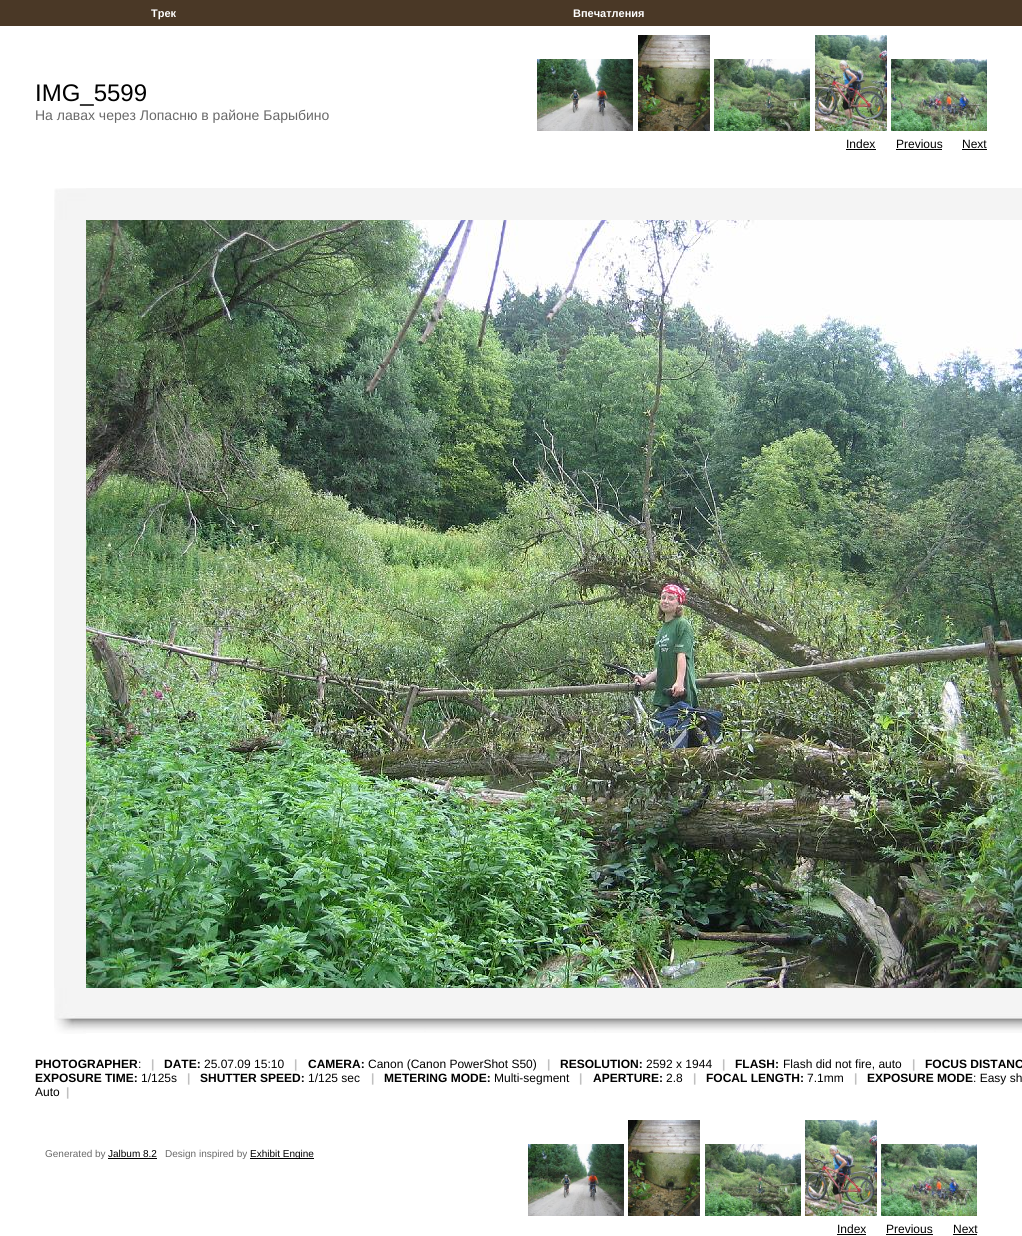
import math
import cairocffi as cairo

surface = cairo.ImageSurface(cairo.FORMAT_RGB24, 1022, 1236)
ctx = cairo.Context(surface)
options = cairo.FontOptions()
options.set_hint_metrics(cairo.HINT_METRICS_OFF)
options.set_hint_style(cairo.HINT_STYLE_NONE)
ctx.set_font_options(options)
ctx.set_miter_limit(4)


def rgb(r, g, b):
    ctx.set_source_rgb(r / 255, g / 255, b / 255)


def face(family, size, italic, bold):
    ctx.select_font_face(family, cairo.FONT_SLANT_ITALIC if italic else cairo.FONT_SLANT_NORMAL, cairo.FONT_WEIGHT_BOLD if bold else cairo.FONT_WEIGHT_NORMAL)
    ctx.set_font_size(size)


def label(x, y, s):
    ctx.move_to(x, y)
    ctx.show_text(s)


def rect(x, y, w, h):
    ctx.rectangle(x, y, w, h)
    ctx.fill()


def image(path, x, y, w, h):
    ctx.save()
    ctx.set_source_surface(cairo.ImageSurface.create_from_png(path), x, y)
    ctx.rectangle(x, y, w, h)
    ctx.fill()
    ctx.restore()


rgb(255, 255, 255)
ctx.paint()
rgb(74, 56, 38)
rect(0, 0, 1022, 26)
face('Liberation Sans', 11, 0, 1)
rgb(255, 255, 255)
label(151, 17, 'Трек')
label(573, 17, 'Впечатления')
face('Liberation Sans', 24, 0, 0)
rgb(0, 0, 0)
label(35, 101, 'IMG_5599')
face('Liberation Sans', 14, 0, 0)
rgb(105, 105, 105)
label(35, 120, 'На лавах через Лопасню в районе Барыбино')
image('image0.png', 537, 59, 96, 72)
image('image1.png', 638, 35, 72, 96)
image('image2.png', 714, 59, 96, 72)
image('image3.png', 815, 35, 72, 96)
image('image4.png', 891, 59, 96, 72)
face('Liberation Sans', 12, 0, 0)
rgb(0, 0, 0)
label(846, 148, 'Index')
rect(846, 149, 30, 1)
label(896, 148, 'Previous')
rect(896, 149, 46, 1)
label(962, 148, 'Next')
rect(962, 149, 25, 1)
image('image5.png', 54, 188, 32, 32)
rgb(244, 244, 244)
rect(86, 188, 936, 32)
rect(54, 220, 32, 768)
image('image6.png', 86, 220, 936, 768)
image('image7.png', 54, 988, 32, 46)
image('image8.png', 86, 988, 936, 45)
face('Liberation Sans', 12, 0, 1)
rgb(0, 0, 0)
label(35, 1068, 'PHOTOGRAPHER')
face('Liberation Sans', 12, 0, 0)
label(138, 1068, ':')
face('Liberation Sans', 12, 0, 1)
rgb(192, 192, 192)
label(151, 1068, '|')
rgb(0, 0, 0)
label(164, 1068, 'DATE:')
face('Liberation Sans', 12, 0, 0)
label(204, 1068, '25.07.09 15:10')
face('Liberation Sans', 12, 0, 1)
rgb(192, 192, 192)
label(294, 1068, '|')
rgb(0, 0, 0)
label(308, 1068, 'CAMERA:')
face('Liberation Sans', 12, 0, 0)
label(368, 1068, 'Canon (Canon PowerShot S50)')
face('Liberation Sans', 12, 0, 1)
rgb(192, 192, 192)
label(547, 1068, '|')
rgb(0, 0, 0)
label(560, 1068, 'RESOLUTION:')
face('Liberation Sans', 12, 0, 0)
label(646, 1068, '2592 x 1944')
face('Liberation Sans', 12, 0, 1)
rgb(192, 192, 192)
label(722, 1068, '|')
rgb(0, 0, 0)
label(735, 1068, 'FLASH:')
face('Liberation Sans', 12, 0, 0)
label(783, 1068, 'Flash did not fire, auto')
face('Liberation Sans', 12, 0, 1)
rgb(192, 192, 192)
label(912, 1068, '|')
rgb(0, 0, 0)
label(925, 1068, 'FOCUS DISTANC')
label(35, 1082, 'EXPOSURE TIME:')
face('Liberation Sans', 12, 0, 0)
label(141, 1082, '1/125s')
face('Liberation Sans', 12, 0, 1)
rgb(192, 192, 192)
label(187, 1082, '|')
rgb(0, 0, 0)
label(200, 1082, 'SHUTTER SPEED:')
face('Liberation Sans', 12, 0, 0)
label(308, 1082, '1/125 sec')
face('Liberation Sans', 12, 0, 1)
rgb(192, 192, 192)
label(371, 1082, '|')
rgb(0, 0, 0)
label(384, 1082, 'METERING MODE:')
face('Liberation Sans', 12, 0, 0)
label(494, 1082, 'Multi-segment')
face('Liberation Sans', 12, 0, 1)
rgb(192, 192, 192)
label(579, 1082, '|')
rgb(0, 0, 0)
label(593, 1082, 'APERTURE:')
face('Liberation Sans', 12, 0, 0)
label(666, 1082, '2.8')
face('Liberation Sans', 12, 0, 1)
rgb(192, 192, 192)
label(693, 1082, '|')
rgb(0, 0, 0)
label(706, 1082, 'FOCAL LENGTH:')
face('Liberation Sans', 12, 0, 0)
label(807, 1082, '7.1mm')
face('Liberation Sans', 12, 0, 1)
rgb(192, 192, 192)
label(854, 1082, '|')
rgb(0, 0, 0)
label(867, 1082, 'EXPOSURE MODE')
face('Liberation Sans', 12, 0, 0)
label(973, 1082, ': Easy sh')
label(35, 1096, 'Auto')
face('Liberation Sans', 12, 0, 1)
rgb(192, 192, 192)
label(66, 1096, '|')
face('Liberation Sans', 10, 0, 0)
rgb(105, 105, 105)
label(45, 1157, 'Generated by')
rgb(0, 0, 0)
label(108, 1157, 'Jalbum 8.2')
rect(108, 1158, 49, 1)
rgb(105, 105, 105)
label(165, 1157, 'Design inspired by')
rgb(0, 0, 0)
rect(250, 1158, 64, 1)
label(250, 1157, 'Exhibit Engine')
image('image0.png', 528, 1144, 96, 72)
image('image1.png', 628, 1120, 72, 96)
image('image2.png', 705, 1144, 96, 72)
image('image3.png', 805, 1120, 72, 96)
image('image4.png', 881, 1144, 96, 72)
face('Liberation Sans', 12, 0, 0)
label(837, 1233, 'Index')
rect(837, 1234, 29, 1)
label(886, 1233, 'Previous')
rect(886, 1234, 47, 1)
label(953, 1233, 'Next')
rect(953, 1234, 24, 1)
surface.write_to_png('render.png')
